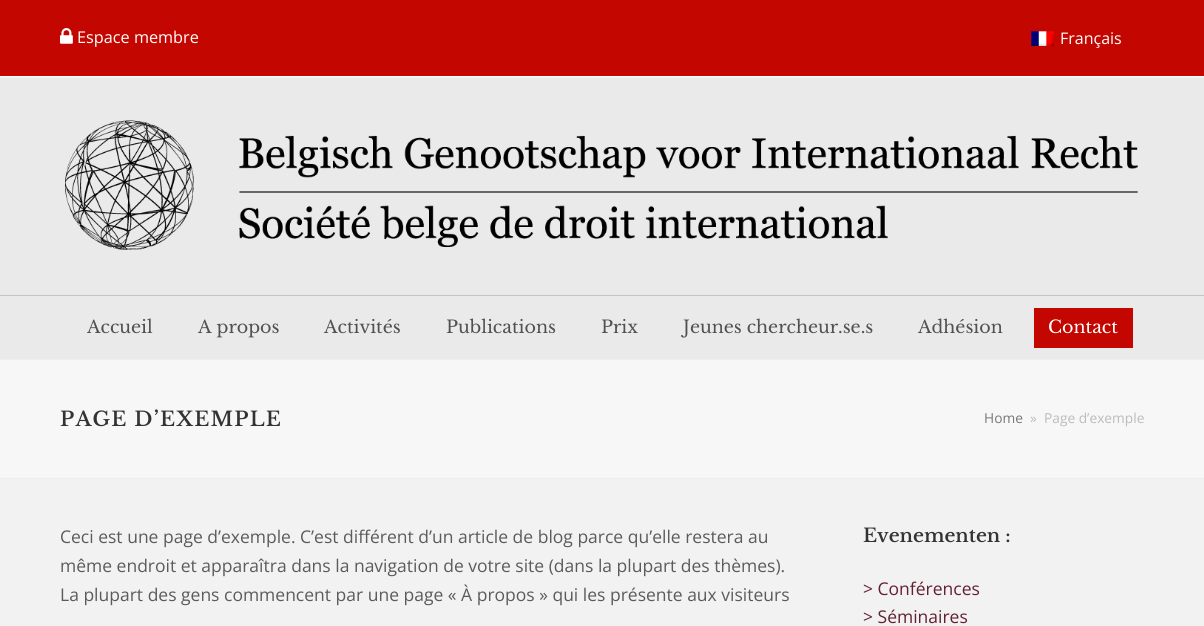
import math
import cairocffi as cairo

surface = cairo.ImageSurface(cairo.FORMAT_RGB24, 1204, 626)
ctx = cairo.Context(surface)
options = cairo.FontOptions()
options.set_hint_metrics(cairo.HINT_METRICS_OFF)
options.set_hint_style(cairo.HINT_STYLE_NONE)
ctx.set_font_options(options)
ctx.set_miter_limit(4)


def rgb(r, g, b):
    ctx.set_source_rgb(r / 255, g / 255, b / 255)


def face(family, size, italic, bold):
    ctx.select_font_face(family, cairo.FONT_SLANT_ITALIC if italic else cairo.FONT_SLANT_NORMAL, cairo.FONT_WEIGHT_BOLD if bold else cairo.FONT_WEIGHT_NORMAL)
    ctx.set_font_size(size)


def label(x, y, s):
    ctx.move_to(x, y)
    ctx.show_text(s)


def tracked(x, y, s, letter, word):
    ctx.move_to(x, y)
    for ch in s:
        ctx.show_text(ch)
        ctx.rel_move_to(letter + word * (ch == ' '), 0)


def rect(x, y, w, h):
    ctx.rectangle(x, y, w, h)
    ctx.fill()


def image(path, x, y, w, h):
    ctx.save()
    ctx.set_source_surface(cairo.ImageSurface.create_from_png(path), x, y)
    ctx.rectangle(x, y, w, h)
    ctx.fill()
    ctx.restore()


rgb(242, 242, 242)
ctx.paint()
rgb(196, 6, 0)
rect(0, 0, 1204, 76)
rgb(255, 255, 255)
rect(0, 76, 1204, 1)
image('image0.png', 60, 28, 13, 16)
face('Open Sans', 16.25, 0, 0)
label(77, 43, 'Espace membre')
image('image1.png', 1031, 31, 23, 15)
face('Open Sans', 16, 0, 0)
label(1060, 44, 'Français')
rgb(234, 234, 234)
rect(0, 78, 1204, 281)
image('image2.png', 65, 120, 1073, 130)
rgb(196, 196, 196)
rect(0, 295, 1204, 1)
face('Libre Baskerville', 17.5, 0, 0)
rgb(81, 81, 81)
label(87, 333, 'Accueil')
label(198, 333, 'A propos')
label(324, 333, 'Activités')
label(446, 333, 'Publications')
label(601, 333, 'Prix')
label(683, 333, 'Jeunes chercheur.se.s')
label(918, 333, 'Adhésion')
rgb(196, 6, 0)
rect(1034, 308, 99, 40)
rgb(255, 255, 255)
label(1048, 333, 'Contact')
rgb(247, 247, 247)
rect(0, 360, 1204, 118)
rgb(238, 238, 238)
rect(0, 359, 1204, 1)
rect(0, 478, 1204, 1)
face('Libre Baskerville SemiBold', 20, 0, 0)
rgb(51, 51, 51)
tracked(60, 426, 'PAGE D’EXEMPLE', 1.25, 0)
face('Open Sans', 13.75, 0, 0)
rgb(119, 119, 119)
label(984, 423, 'Home')
rgb(188, 188, 188)
label(1030, 423, '»')
label(1044, 423, 'Page d’exemple')
face('Open Sans', 17.5, 0, 0)
rgb(91, 91, 91)
label(60, 543, 'Ceci est une page d’exemple. C’est différent d’un article de blog parce qu’elle restera au')
label(60, 572, 'même endroit et apparaîtra dans la navigation de votre site (dans la plupart des thèmes).')
label(60, 601, 'La plupart des gens commencent par une page « À propos » qui les présente aux visiteurs')
face('Libre Baskerville SemiBold', 18.75, 0, 0)
rgb(51, 51, 51)
label(863, 542, 'Evenementen :')
face('Open Sans', 17.5, 0, 0)
rgb(99, 32, 50)
label(863, 595, '> Conférences')
label(863, 623, '> Séminaires')
surface.write_to_png('render.png')
